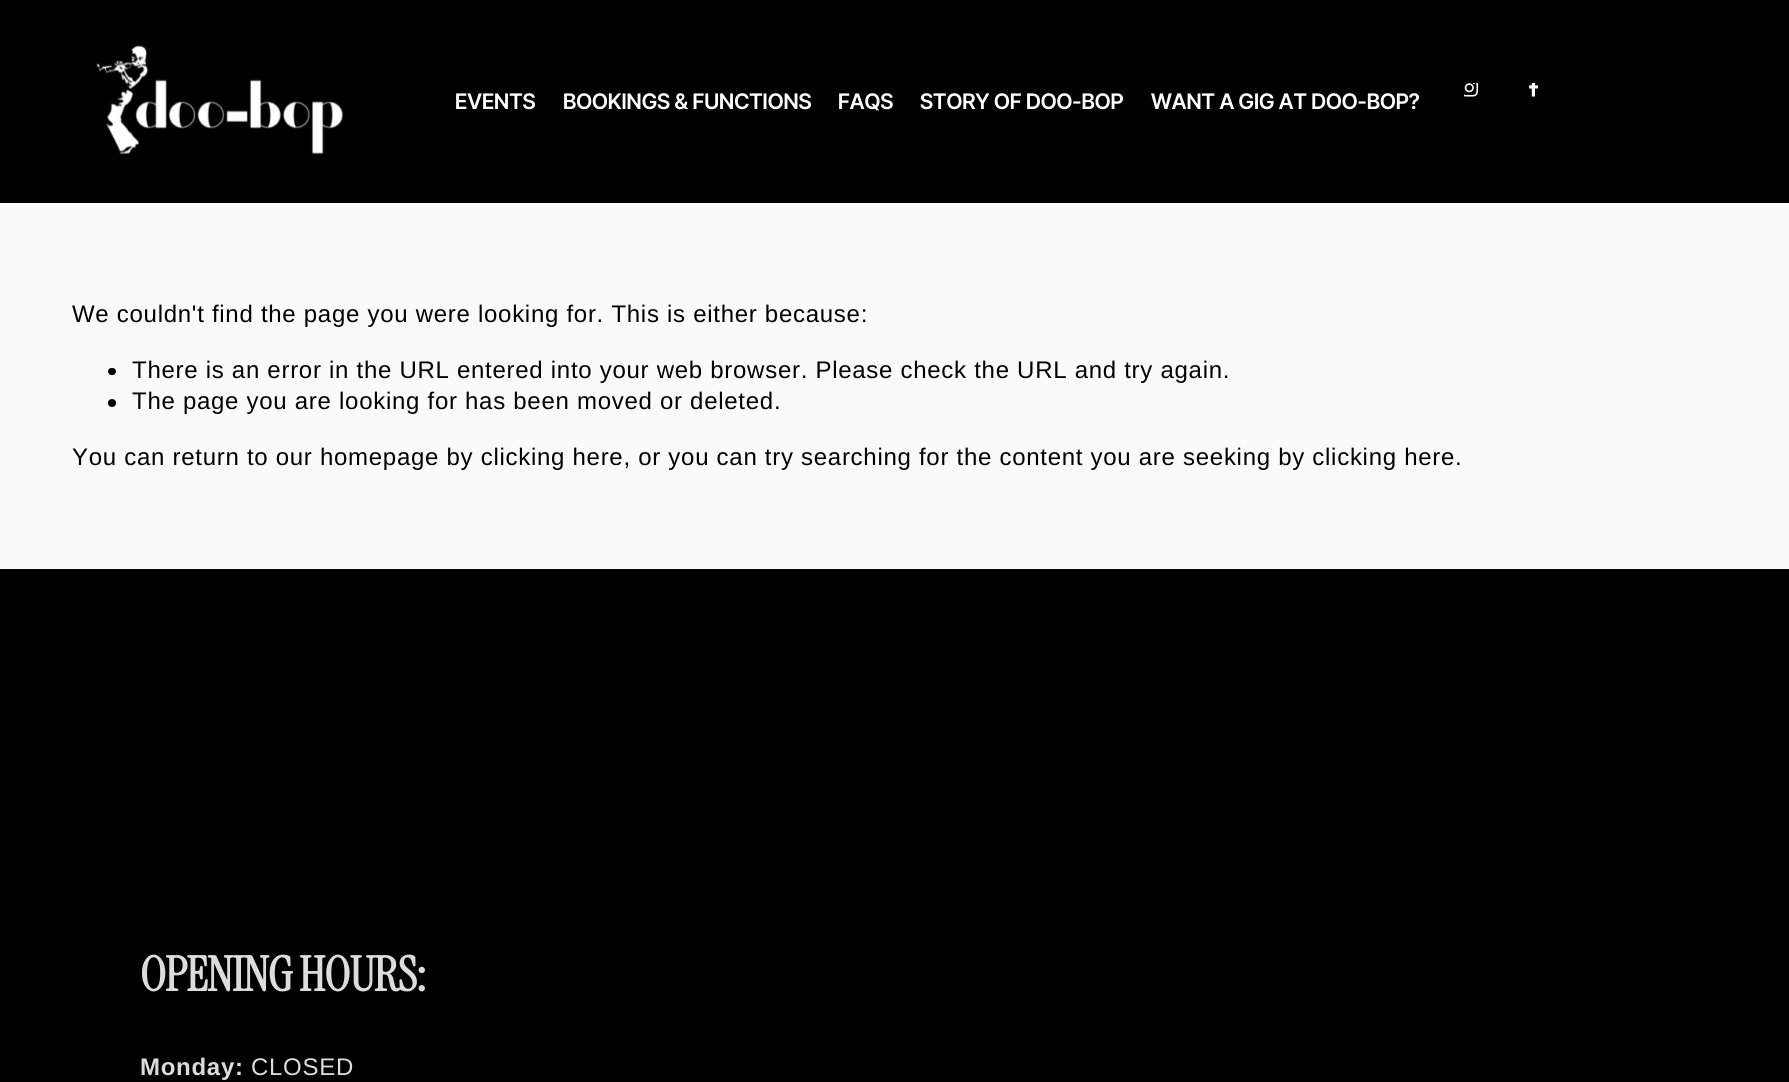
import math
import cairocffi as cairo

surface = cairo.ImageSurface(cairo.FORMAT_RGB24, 1789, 1082)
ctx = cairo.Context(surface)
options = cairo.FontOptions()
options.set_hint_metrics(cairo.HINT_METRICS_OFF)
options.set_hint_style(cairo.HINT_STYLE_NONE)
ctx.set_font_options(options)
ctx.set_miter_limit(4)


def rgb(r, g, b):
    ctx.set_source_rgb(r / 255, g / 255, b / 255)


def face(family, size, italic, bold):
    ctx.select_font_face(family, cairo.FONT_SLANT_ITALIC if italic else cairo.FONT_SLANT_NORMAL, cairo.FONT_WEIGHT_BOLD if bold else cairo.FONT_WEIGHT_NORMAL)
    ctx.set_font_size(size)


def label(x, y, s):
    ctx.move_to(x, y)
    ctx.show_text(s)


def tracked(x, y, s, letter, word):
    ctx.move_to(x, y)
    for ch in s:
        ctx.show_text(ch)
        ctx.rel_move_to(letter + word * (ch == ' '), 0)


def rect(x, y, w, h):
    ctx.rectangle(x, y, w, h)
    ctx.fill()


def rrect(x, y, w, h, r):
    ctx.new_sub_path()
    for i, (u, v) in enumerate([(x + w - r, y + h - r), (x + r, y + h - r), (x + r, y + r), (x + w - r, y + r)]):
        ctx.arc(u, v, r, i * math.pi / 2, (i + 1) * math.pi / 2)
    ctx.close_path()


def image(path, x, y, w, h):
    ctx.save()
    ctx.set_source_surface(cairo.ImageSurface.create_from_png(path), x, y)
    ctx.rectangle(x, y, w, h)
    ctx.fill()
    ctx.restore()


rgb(250, 250, 250)
ctx.paint()
rgb(0, 0, 0)
rect(0, 0, 1789, 203)
image('image0.png', 1464, 83, 15, 14)
image('image1.png', 1529, 83, 10, 14)
image('image2.png', 96, 45, 247, 110)
face('Inter Tight SemiBold', 21.4, 0, 0)
rgb(255, 255, 255)
label(455, 109, 'EVENTS')
label(563, 109, 'BOOKINGS & FUNCTIONS')
label(838, 109, 'FAQS')
label(920, 109, 'STORY OF DOO-BOP')
label(1151, 109, 'WANT A GIG AT DOO-BOP?')
face('Liberation Sans', 24, 0, 0)
rgb(0, 0, 0)
tracked(72, 322, 'We couldn\'t find the page you were looking for. This is either because:', 0.72, 0)
rrect(108, 368, 8, 7, 3.5)
ctx.fill()
tracked(132, 378, 'There is an error in the URL entered into your web browser. Please check the URL and try again.', 0.72, 0)
ctx.new_path()
ctx.arc(112, 403, 4, 0, 2 * math.pi)
ctx.fill()
tracked(132, 409, 'The page you are looking for has been moved or deleted.', 0.72, 0)
tracked(72, 465, 'You can return to our homepage by clicking here, or you can try searching for the content you are seeking by clicking here.', 0.72, 0)
rect(0, 569, 1789, 513)
face('Instrument Serif', 48, 0, 1)
rgb(220, 220, 220)
tracked(140, 991, 'OPENING HOURS:', -1, 0)
face('Liberation Sans', 24, 0, 1)
tracked(140, 1075, 'Monday:', 0.72, 0)
face('Liberation Sans', 24, 0, 0)
tracked(251, 1075, 'CLOSED', 0.72, 0)
surface.write_to_png('render.png')
